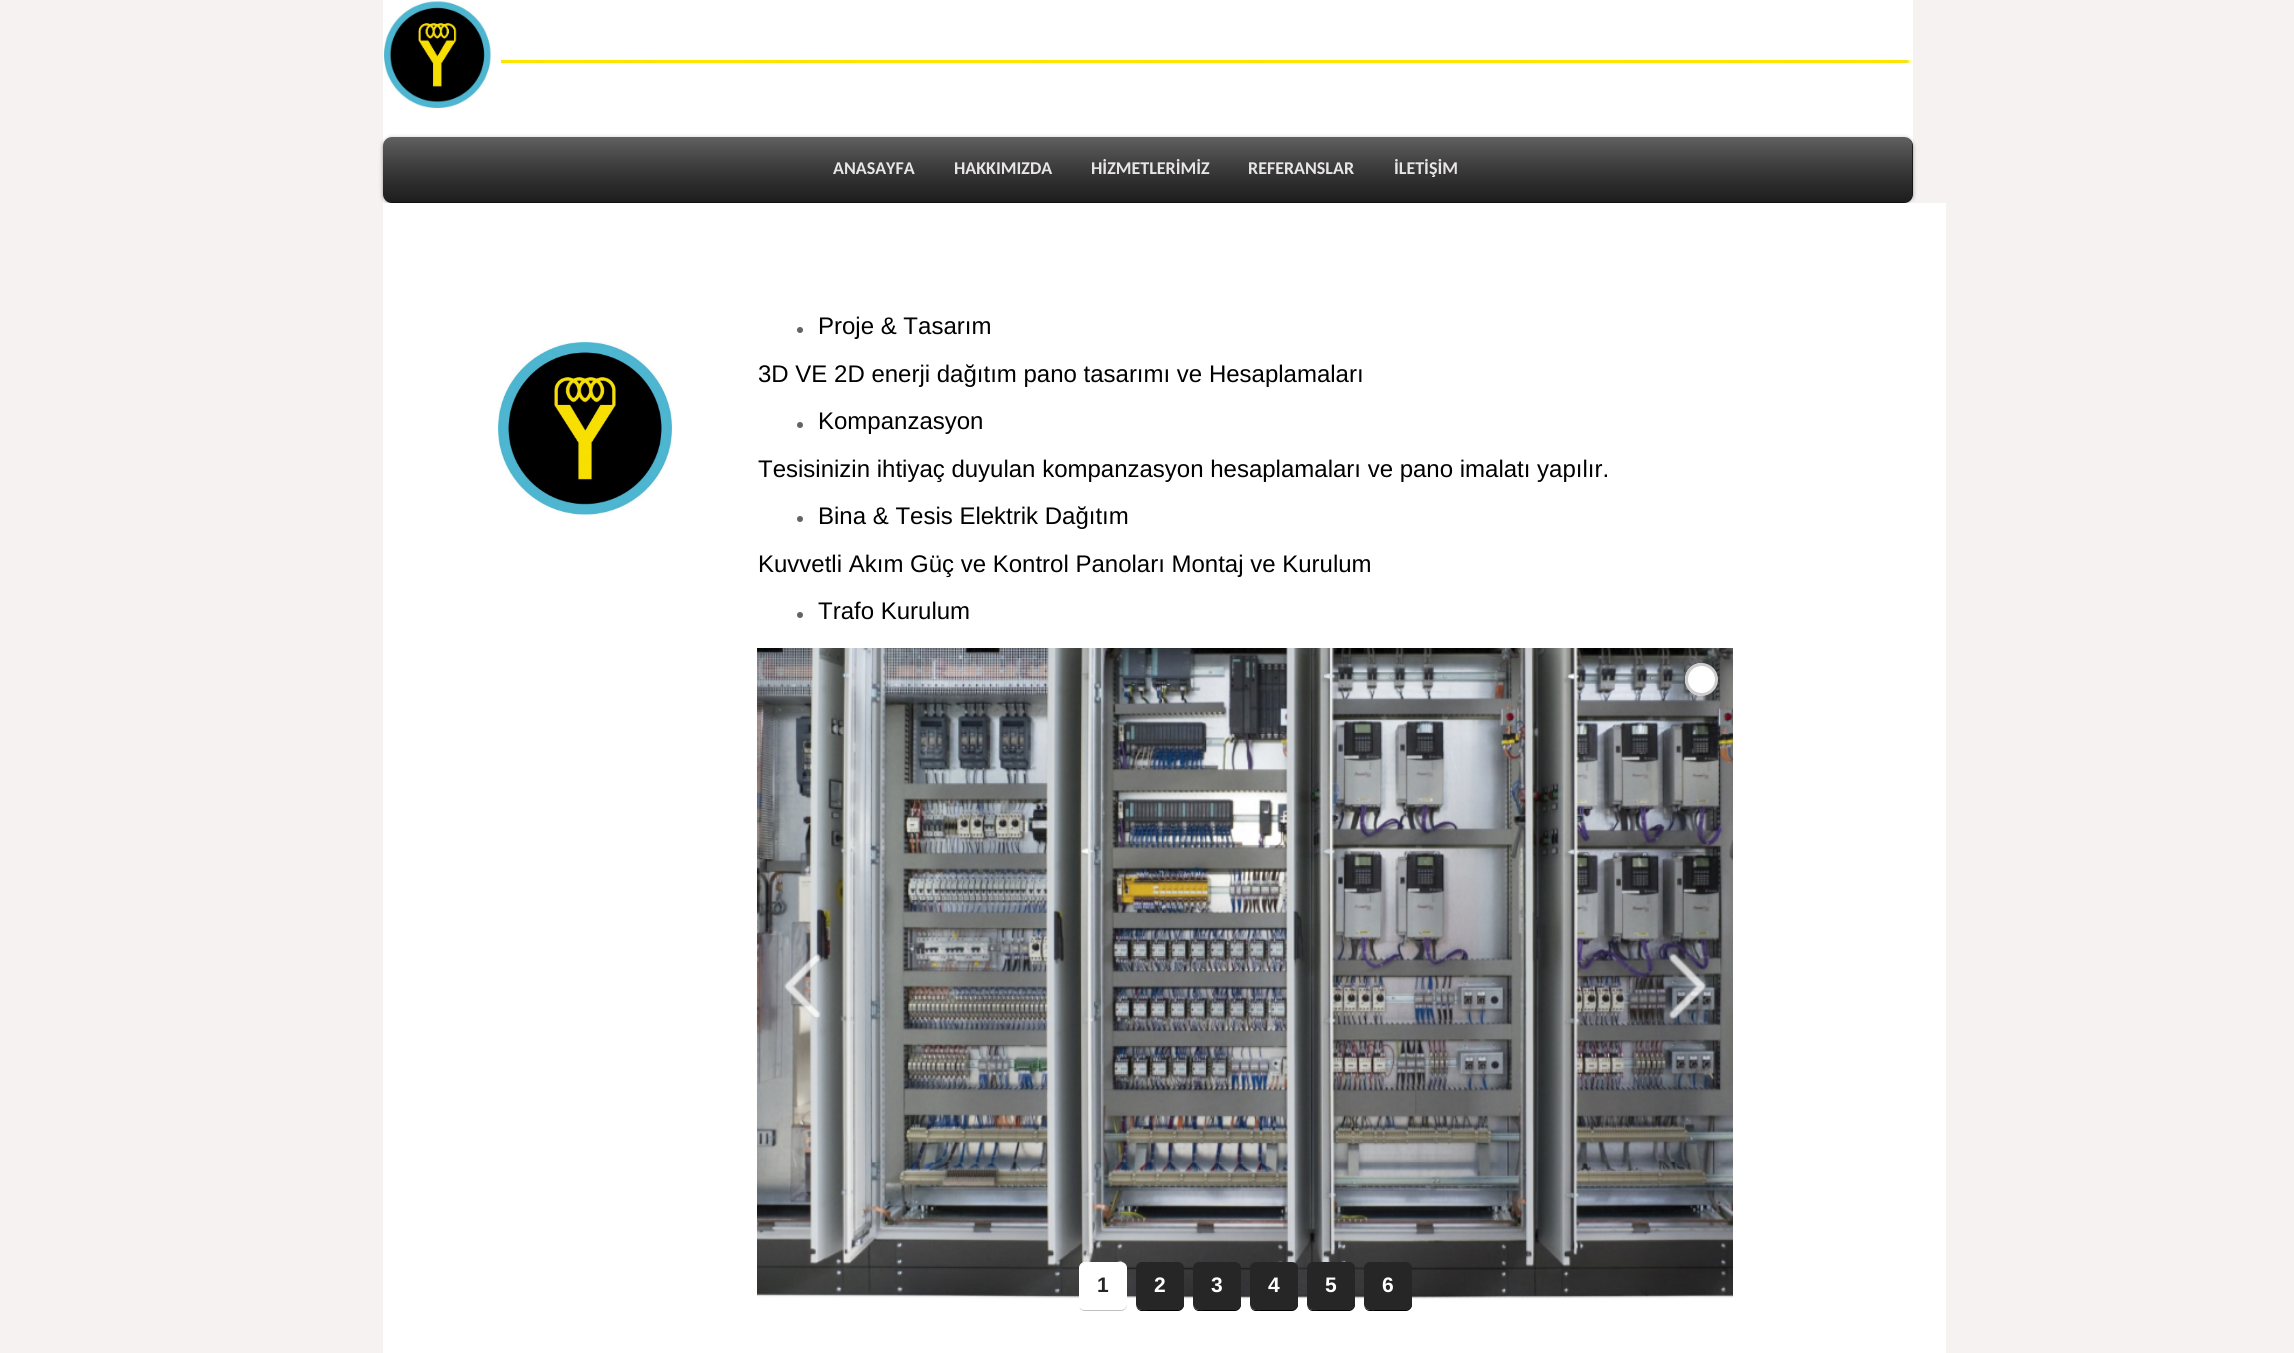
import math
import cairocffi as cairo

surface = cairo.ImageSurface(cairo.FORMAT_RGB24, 2294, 1353)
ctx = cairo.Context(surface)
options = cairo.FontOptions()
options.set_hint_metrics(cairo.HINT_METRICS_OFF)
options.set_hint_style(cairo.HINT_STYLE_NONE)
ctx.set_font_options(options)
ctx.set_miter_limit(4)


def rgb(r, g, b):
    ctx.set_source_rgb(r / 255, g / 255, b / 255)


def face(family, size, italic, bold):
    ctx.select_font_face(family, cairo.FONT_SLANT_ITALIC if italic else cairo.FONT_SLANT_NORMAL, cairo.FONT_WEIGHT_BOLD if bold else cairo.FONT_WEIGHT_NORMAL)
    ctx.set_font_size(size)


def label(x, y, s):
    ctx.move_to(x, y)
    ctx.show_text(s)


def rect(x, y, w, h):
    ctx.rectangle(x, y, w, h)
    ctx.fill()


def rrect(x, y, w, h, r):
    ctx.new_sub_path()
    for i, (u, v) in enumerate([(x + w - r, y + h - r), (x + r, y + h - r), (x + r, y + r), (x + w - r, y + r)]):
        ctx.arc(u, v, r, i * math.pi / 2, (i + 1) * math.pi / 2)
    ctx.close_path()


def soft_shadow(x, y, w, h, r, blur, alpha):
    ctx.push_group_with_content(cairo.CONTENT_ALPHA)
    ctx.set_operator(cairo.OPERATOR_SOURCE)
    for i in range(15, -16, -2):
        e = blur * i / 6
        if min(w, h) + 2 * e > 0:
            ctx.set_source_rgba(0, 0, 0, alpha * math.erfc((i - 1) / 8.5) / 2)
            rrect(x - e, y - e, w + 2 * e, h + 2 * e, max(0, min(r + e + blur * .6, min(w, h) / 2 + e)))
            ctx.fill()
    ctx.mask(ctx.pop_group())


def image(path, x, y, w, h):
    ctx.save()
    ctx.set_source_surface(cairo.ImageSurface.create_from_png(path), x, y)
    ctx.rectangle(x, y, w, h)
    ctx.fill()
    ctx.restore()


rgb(246, 242, 241)
ctx.paint()
rgb(255, 255, 255)
rect(383, 0, 1530, 203)
image('image0.png', 384, 1, 107, 107)
image('image1.png', 501, 60, 1410, 3)
rgb(0, 0, 0)
soft_shadow(383, 138, 1530, 66, 9, 2, 0.4)
rgb(13, 13, 13)
rrect(383, 137, 1530, 66, 9)
ctx.fill()
image('image2.png', 383, 137, 1530, 65)
face('Carlito', 18, 0, 1)
rgb(231, 229, 229)
label(833, 174, 'ANASAYFA')
label(954, 174, 'HAKKIMIZDA')
label(1091, 174, 'HİZMETLERİMİZ')
label(1248, 174, 'REFERANSLAR')
label(1394, 174, 'İLETİŞİM')
rgb(255, 255, 255)
rect(383, 203, 1563, 1150)
image('image3.png', 498, 342, 174, 173)
rgb(99, 99, 99)
ctx.arc(800, 330, 3, 0, 2 * math.pi)
ctx.fill()
face('Liberation Sans', 24, 0, 0)
rgb(0, 0, 0)
label(818, 334, 'Proje & Tasarım')
label(758, 382, '3D VE 2D enerji dağıtım pano tasarımı ve Hesaplamaları')
rgb(99, 99, 99)
ctx.new_path()
ctx.arc(800, 425, 3, 0, 2 * math.pi)
ctx.fill()
rgb(0, 0, 0)
label(818, 429, 'Kompanzasyon')
label(758, 477, 'Tesisinizin ihtiyaç duyulan kompanzasyon hesaplamaları ve pano imalatı yapılır.')
rgb(99, 99, 99)
ctx.new_path()
ctx.arc(800, 519, 3, 0, 2 * math.pi)
ctx.fill()
rgb(0, 0, 0)
label(818, 524, 'Bina & Tesis Elektrik Dağıtım')
label(758, 572, 'Kuvvetli Akım Güç ve Kontrol Panoları Montaj ve Kurulum')
rgb(99, 99, 99)
ctx.new_path()
ctx.arc(800, 615, 3, 0, 2 * math.pi)
ctx.fill()
rgb(0, 0, 0)
label(818, 619, 'Trafo Kurulum')
image('image4.png', 757, 648, 976, 651)
rgb(255, 255, 255)
ctx.new_path()
ctx.move_to(1701.5, 663)
ctx.line_to(1701, 663)
ctx.line_to(1701, 696)
ctx.line_to(1701.5, 696)
ctx.curve_to(1692.5, 696, 1685, 688.5, 1685, 679.5)
ctx.curve_to(1685, 670.5, 1692.5, 663, 1701.5, 663)
ctx.close_path()
ctx.fill()
ctx.save()
ctx.rectangle(1685, 663, 16, 33)
ctx.clip()
ctx.arc(1701.5, 679.5, 15, 0, 2 * math.pi)
rgb(204, 204, 204)
ctx.set_line_width(3)
ctx.stroke()
ctx.restore()
ctx.save()
ctx.rectangle(1701, 663, 17, 33)
ctx.clip()
ctx.arc(1701.5, 679.5, 15, 0, 2 * math.pi)
ctx.fill_preserve()
rgb(204, 204, 204)
ctx.set_line_width(3)
ctx.stroke()
ctx.restore()
image('image5.png', 784, 953, 37, 66)
image('image6.png', 1669, 953, 37, 66)
rgb(191, 191, 191)
ctx.new_path()
ctx.move_to(1079, 1306)
ctx.curve_to(1080, 1309, 1082, 1311, 1085, 1311)
ctx.line_to(1121, 1311)
ctx.curve_to(1124, 1311, 1127, 1308, 1127, 1305)
ctx.line_to(1127, 1269)
ctx.line_to(1126, 1266)
ctx.line_to(1126, 1305)
ctx.curve_to(1125, 1310, 1119, 1310, 1114, 1310)
ctx.line_to(1090, 1310)
ctx.curve_to(1087, 1310, 1081, 1311, 1079, 1306)
ctx.close_path()
ctx.fill()
rgb(255, 255, 255)
rrect(1079, 1262, 48, 48, 6)
ctx.fill()
face('Liberation Sans', 21, 0, 1)
rgb(38, 38, 38)
label(1097, 1292, '1')
rgb(0, 0, 0)
ctx.new_path()
ctx.move_to(1136, 1306)
ctx.curve_to(1137, 1309, 1139, 1311, 1142, 1311)
ctx.line_to(1178, 1311)
ctx.curve_to(1181, 1311, 1184, 1308, 1184, 1305)
ctx.line_to(1184, 1269)
ctx.line_to(1183, 1266)
ctx.line_to(1183, 1305)
ctx.curve_to(1182, 1310, 1176, 1310, 1172, 1310)
ctx.line_to(1148, 1310)
ctx.curve_to(1144, 1310, 1138, 1311, 1136, 1306)
ctx.close_path()
ctx.fill()
rgb(38, 38, 38)
rrect(1136, 1262, 48, 48, 6)
ctx.fill()
rgb(255, 255, 255)
label(1154, 1292, '2')
rgb(0, 0, 0)
ctx.new_path()
ctx.move_to(1193, 1306)
ctx.curve_to(1194, 1309, 1196, 1311, 1199, 1311)
ctx.line_to(1235, 1311)
ctx.curve_to(1238, 1311, 1241, 1308, 1241, 1305)
ctx.line_to(1241, 1269)
ctx.line_to(1240, 1266)
ctx.line_to(1240, 1305)
ctx.curve_to(1239, 1310, 1233, 1310, 1228, 1310)
ctx.line_to(1204, 1310)
ctx.curve_to(1201, 1310, 1195, 1311, 1193, 1306)
ctx.close_path()
ctx.fill()
rgb(38, 38, 38)
rrect(1193, 1262, 48, 48, 6)
ctx.fill()
rgb(255, 255, 255)
label(1211, 1292, '3')
rgb(0, 0, 0)
ctx.new_path()
ctx.move_to(1250, 1306)
ctx.curve_to(1251, 1309, 1253, 1311, 1256, 1311)
ctx.line_to(1292, 1311)
ctx.curve_to(1295, 1311, 1298, 1308, 1298, 1305)
ctx.line_to(1298, 1269)
ctx.line_to(1297, 1266)
ctx.line_to(1297, 1305)
ctx.curve_to(1296, 1310, 1290, 1310, 1286, 1310)
ctx.line_to(1262, 1310)
ctx.curve_to(1258, 1310, 1252, 1311, 1250, 1306)
ctx.close_path()
ctx.fill()
rgb(38, 38, 38)
rrect(1250, 1262, 48, 48, 6)
ctx.fill()
rgb(255, 255, 255)
label(1268, 1292, '4')
rgb(0, 0, 0)
ctx.new_path()
ctx.move_to(1307, 1306)
ctx.curve_to(1308, 1309, 1310, 1311, 1313, 1311)
ctx.line_to(1349, 1311)
ctx.curve_to(1352, 1311, 1355, 1308, 1355, 1305)
ctx.line_to(1355, 1269)
ctx.line_to(1354, 1266)
ctx.line_to(1354, 1305)
ctx.curve_to(1353, 1310, 1347, 1310, 1342, 1310)
ctx.line_to(1318, 1310)
ctx.curve_to(1315, 1310, 1309, 1311, 1307, 1306)
ctx.close_path()
ctx.fill()
rgb(38, 38, 38)
rrect(1307, 1262, 48, 48, 6)
ctx.fill()
rgb(255, 255, 255)
label(1325, 1292, '5')
rgb(0, 0, 0)
ctx.new_path()
ctx.move_to(1364, 1306)
ctx.curve_to(1365, 1309, 1367, 1311, 1370, 1311)
ctx.line_to(1406, 1311)
ctx.curve_to(1409, 1311, 1412, 1308, 1412, 1305)
ctx.line_to(1412, 1269)
ctx.line_to(1411, 1266)
ctx.line_to(1411, 1305)
ctx.curve_to(1410, 1310, 1404, 1310, 1400, 1310)
ctx.line_to(1376, 1310)
ctx.curve_to(1372, 1310, 1366, 1311, 1364, 1306)
ctx.close_path()
ctx.fill()
rgb(38, 38, 38)
rrect(1364, 1262, 48, 48, 6)
ctx.fill()
rgb(255, 255, 255)
label(1382, 1292, '6')
surface.write_to_png('render.png')
